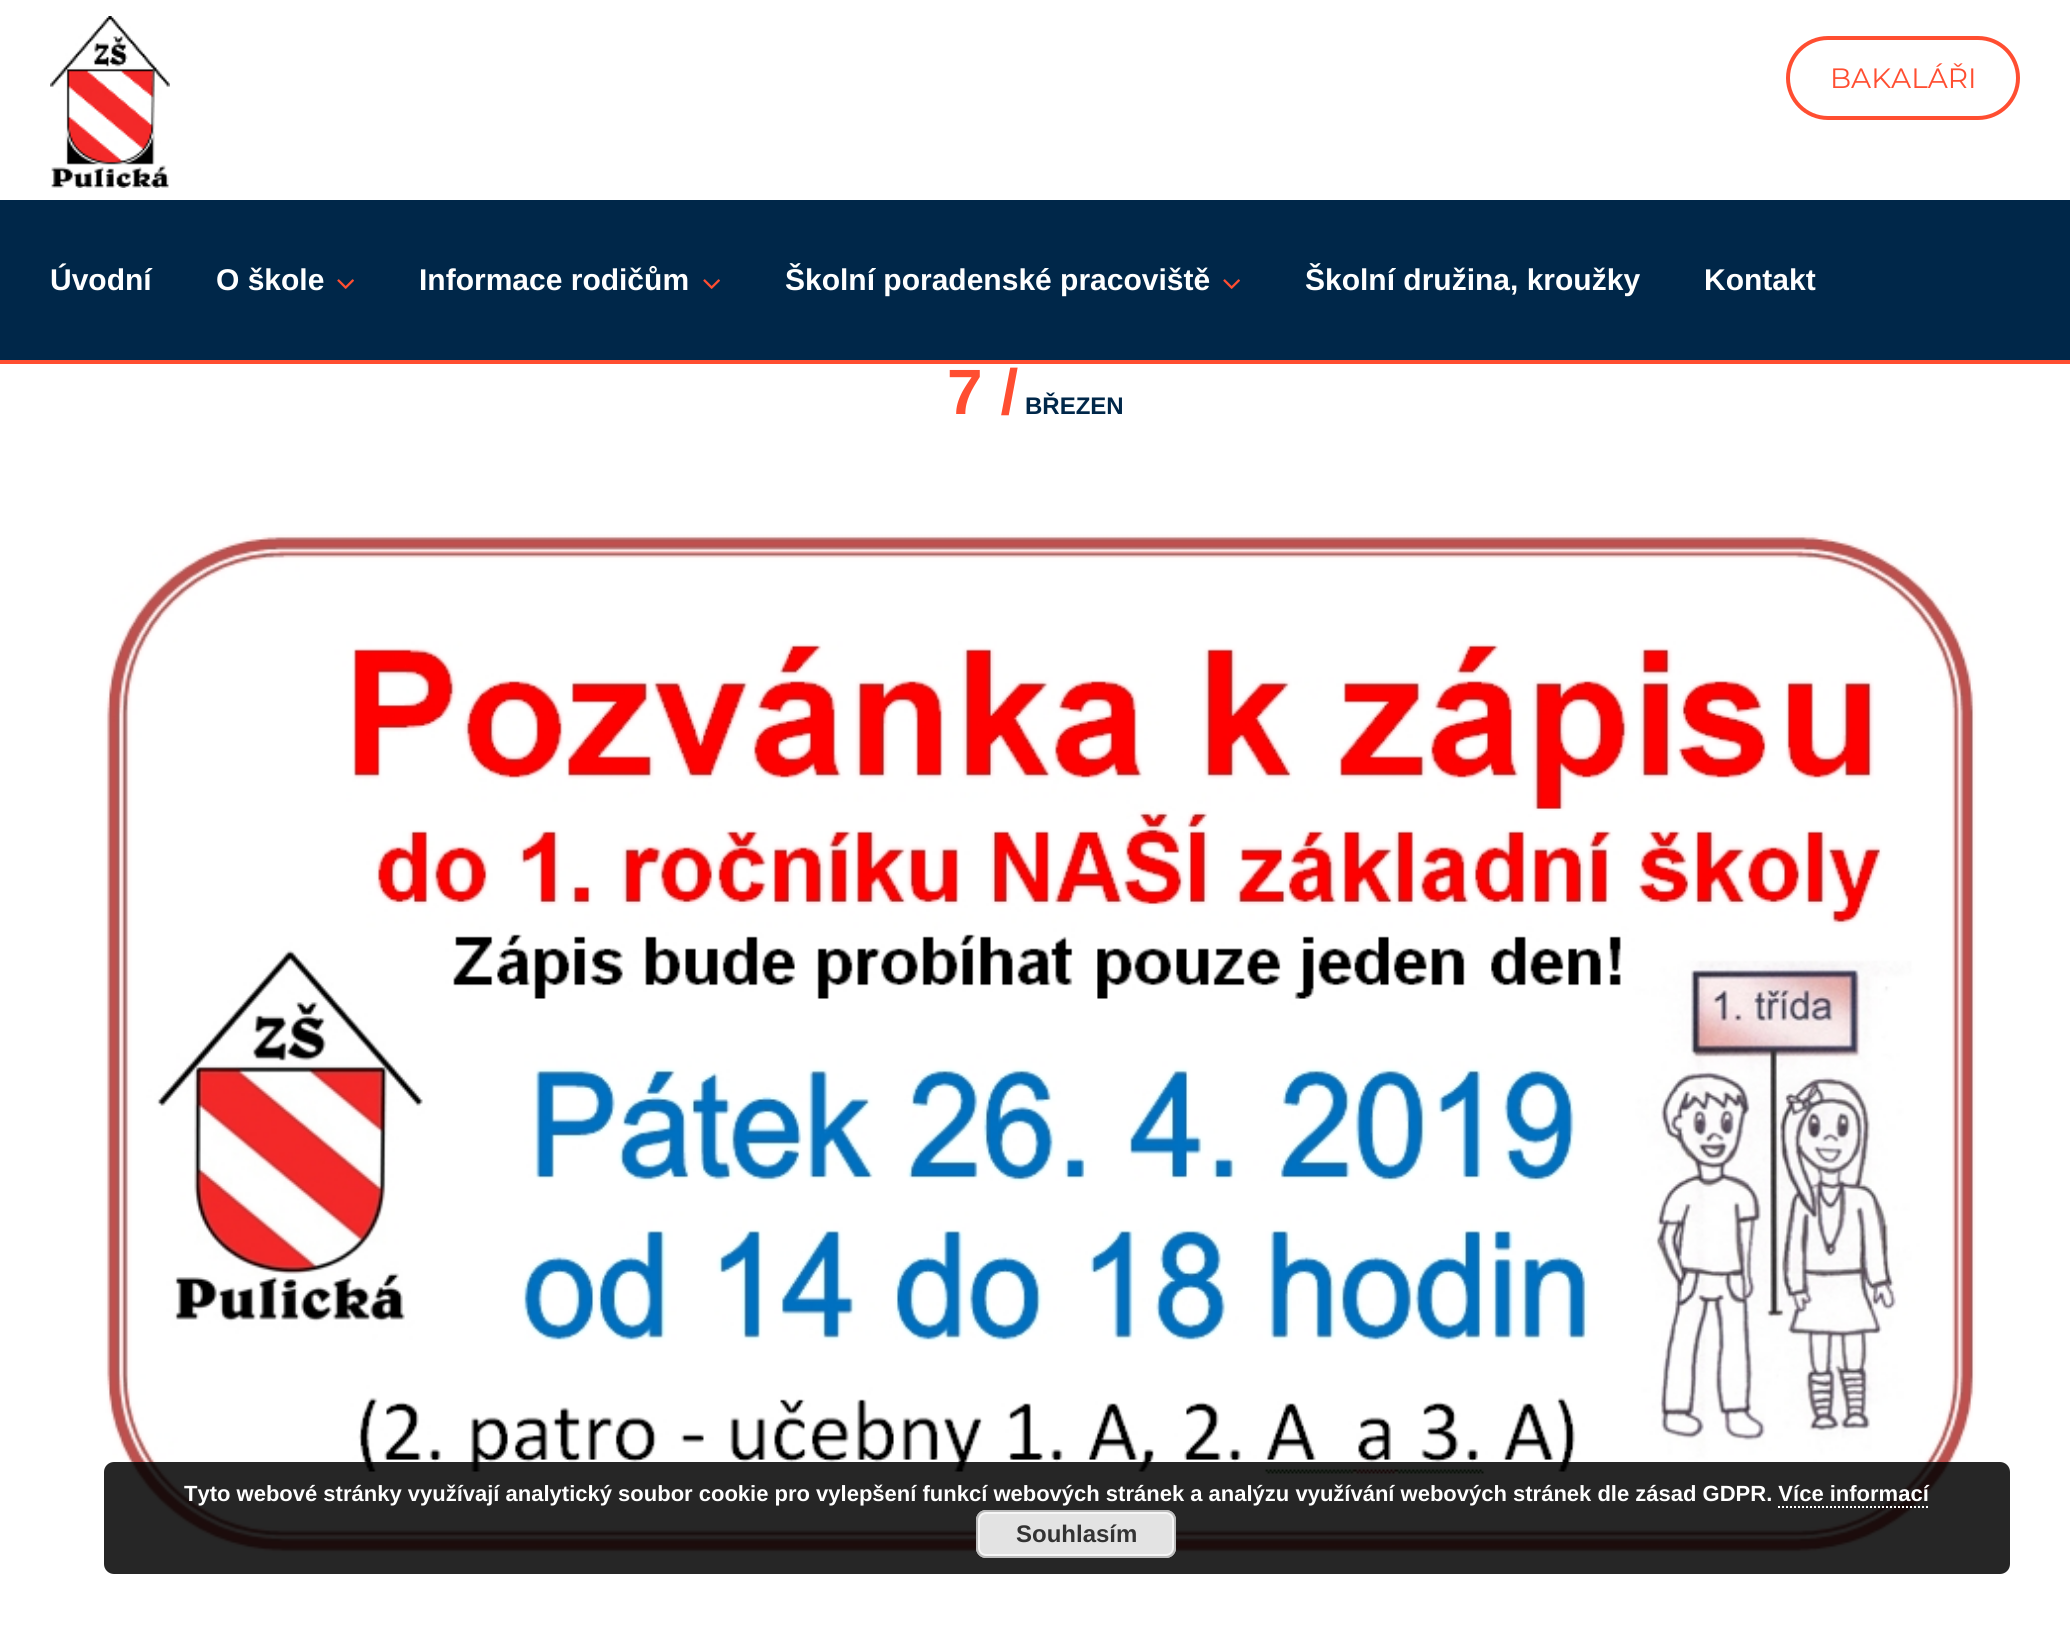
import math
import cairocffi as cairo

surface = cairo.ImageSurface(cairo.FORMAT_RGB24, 2070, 1633)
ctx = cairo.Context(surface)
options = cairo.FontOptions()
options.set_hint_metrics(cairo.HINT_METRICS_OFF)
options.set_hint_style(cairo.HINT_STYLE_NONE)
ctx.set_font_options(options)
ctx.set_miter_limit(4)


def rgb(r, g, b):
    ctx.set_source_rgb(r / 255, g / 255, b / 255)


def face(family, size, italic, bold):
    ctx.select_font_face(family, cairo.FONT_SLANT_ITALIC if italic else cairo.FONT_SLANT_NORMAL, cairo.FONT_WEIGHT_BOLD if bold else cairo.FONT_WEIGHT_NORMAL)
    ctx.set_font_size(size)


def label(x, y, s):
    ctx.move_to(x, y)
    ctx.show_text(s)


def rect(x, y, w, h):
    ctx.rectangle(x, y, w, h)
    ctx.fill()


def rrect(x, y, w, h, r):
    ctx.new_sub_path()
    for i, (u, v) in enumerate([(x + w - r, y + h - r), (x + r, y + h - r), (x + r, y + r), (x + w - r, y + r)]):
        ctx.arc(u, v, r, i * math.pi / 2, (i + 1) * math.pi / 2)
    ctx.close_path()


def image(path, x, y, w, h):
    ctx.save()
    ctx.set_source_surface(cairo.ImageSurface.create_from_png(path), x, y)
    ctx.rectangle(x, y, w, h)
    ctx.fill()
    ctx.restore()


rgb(255, 255, 255)
ctx.paint()
rgb(0, 39, 73)
rect(0, 200, 2070, 160)
rgb(255, 78, 49)
rect(0, 360, 2070, 4)
image('image0.png', 50, 16, 120, 172)
rrect(1788, 38, 230, 80, 40)
ctx.set_line_width(4)
ctx.stroke()
face('Montserrat', 28, 0, 0)
label(1830, 88, 'BAKALÁŘI')
face('Liberation Sans', 30, 0, 1)
rgb(255, 255, 255)
label(50, 290, 'Úvodní')
label(216, 290, 'O škole')
image('image1.png', 337, 279, 17, 10)
label(419, 290, 'Informace rodičům')
image('image1.png', 703, 279, 17, 10)
label(785, 290, 'Školní poradenské pracoviště')
image('image1.png', 1223, 279, 17, 10)
label(1305, 290, 'Školní družina, kroužky')
label(1704, 290, 'Kontakt')
face('Liberation Sans', 64, 0, 1)
rgb(255, 78, 49)
label(947, 414, '7 /')
face('Liberation Sans', 24, 0, 1)
rgb(0, 39, 73)
label(1025, 414, 'BŘEZEN')
image('image2.png', 105, 534, 1871, 1019)
ctx.set_source_rgba(0, 0, 0, 0.85)
rrect(104, 1462, 1906, 112, 10)
ctx.fill()
face('Liberation Sans', 22, 0, 1)
rgb(255, 255, 255)
label(184, 1501, 'Tyto webové stránky využívají analytický soubor cookie pro vylepšení funkcí webových stránek a analýzu využívání webových stránek dle zásad GDPR. Více informací')
ctx.new_path()
ctx.move_to(1778, 1507)
ctx.line_to(1930, 1507)
ctx.set_line_width(2)
ctx.set_dash([2, 2])
ctx.stroke()
rgb(227, 227, 227)
rrect(976, 1510, 200, 48, 10)
ctx.fill()
rrect(979, 1513, 194, 42, 7)
rgb(246, 246, 246)
ctx.set_dash([])
ctx.stroke()
rrect(977, 1511, 198, 46, 9)
rgb(187, 187, 187)
ctx.stroke()
face('Liberation Sans', 24, 0, 1)
rgb(51, 51, 51)
label(1016, 1542, 'Souhlasím')
surface.write_to_png('render.png')
